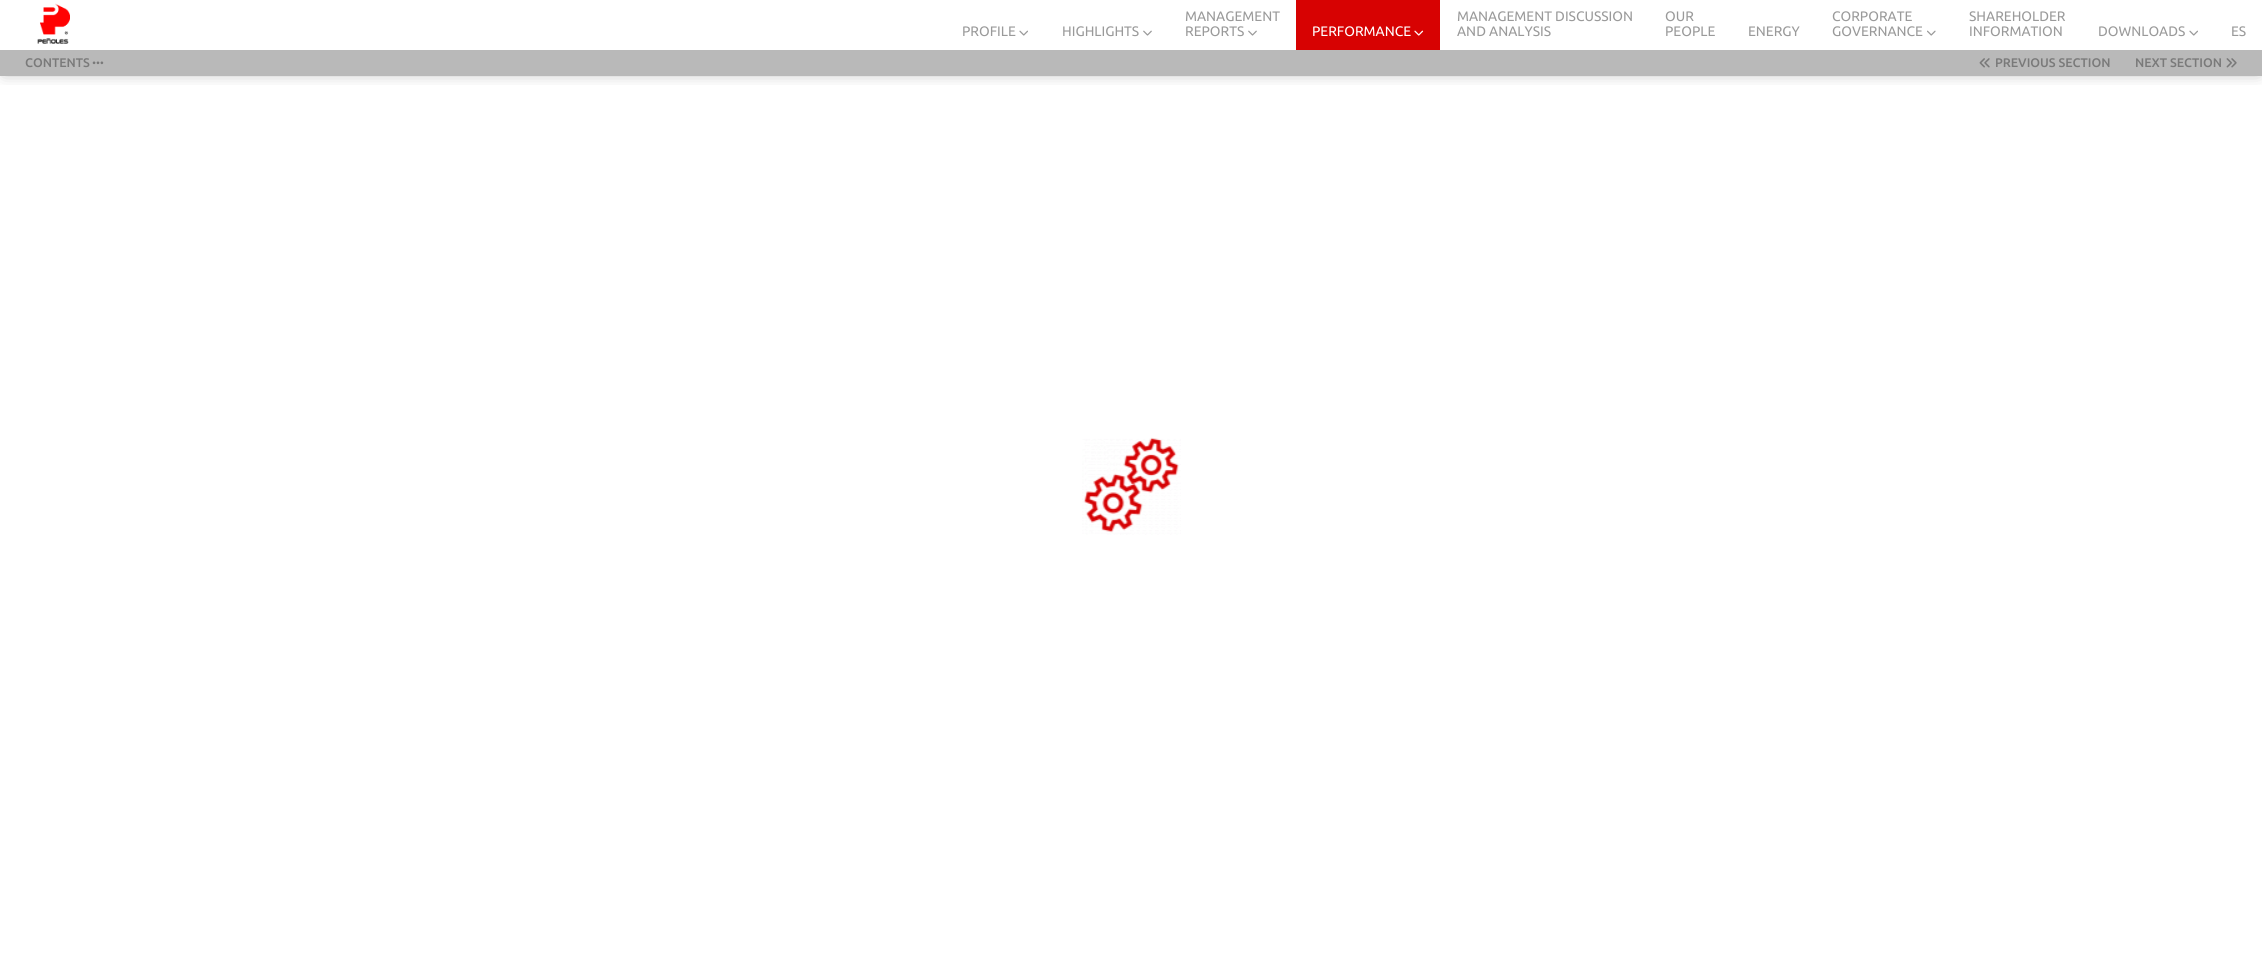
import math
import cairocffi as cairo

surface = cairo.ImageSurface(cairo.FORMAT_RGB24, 2262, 970)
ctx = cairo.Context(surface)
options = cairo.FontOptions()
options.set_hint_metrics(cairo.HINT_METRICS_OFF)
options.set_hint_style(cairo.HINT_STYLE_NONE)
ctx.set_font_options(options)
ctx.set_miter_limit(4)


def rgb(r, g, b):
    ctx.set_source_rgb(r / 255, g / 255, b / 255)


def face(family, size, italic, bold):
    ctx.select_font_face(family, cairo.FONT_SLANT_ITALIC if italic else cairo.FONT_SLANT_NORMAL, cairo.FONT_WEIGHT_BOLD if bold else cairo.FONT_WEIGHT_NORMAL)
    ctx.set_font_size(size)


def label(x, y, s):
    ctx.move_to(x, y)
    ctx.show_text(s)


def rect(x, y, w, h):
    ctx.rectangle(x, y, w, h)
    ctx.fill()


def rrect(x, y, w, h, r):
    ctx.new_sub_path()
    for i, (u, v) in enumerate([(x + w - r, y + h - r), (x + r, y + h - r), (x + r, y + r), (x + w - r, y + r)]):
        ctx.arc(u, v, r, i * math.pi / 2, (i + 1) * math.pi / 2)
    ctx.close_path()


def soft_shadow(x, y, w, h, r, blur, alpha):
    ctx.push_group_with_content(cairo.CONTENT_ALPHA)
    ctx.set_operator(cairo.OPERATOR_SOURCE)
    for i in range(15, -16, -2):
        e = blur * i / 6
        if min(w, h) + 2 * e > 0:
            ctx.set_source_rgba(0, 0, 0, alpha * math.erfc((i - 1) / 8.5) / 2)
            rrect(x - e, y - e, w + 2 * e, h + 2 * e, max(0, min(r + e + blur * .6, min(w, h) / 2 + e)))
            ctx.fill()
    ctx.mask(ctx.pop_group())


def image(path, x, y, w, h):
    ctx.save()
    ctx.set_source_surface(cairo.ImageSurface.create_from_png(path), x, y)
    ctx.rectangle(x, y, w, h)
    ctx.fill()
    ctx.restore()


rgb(255, 255, 255)
ctx.paint()
ctx.save()
ctx.rectangle(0, 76, 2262, 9)
ctx.clip()
rgb(2, 2, 2)
soft_shadow(4, 1, 2255, 72, 0, 8, 0.29)
ctx.restore()
image('image0.png', 37, 3, 33, 41)
face('Ubuntu', 13.75, 0, 0)
rgb(154, 154, 154)
label(962, 36, 'PROFILE')
image('image1.png', 1019, 30, 9, 6)
label(1062, 36, 'HIGHLIGHTS')
image('image2.png', 1143, 30, 9, 6)
label(1185, 21, 'MANAGEMENT')
label(1185, 36, 'REPORTS')
image('image2.png', 1248, 30, 9, 6)
rgb(215, 2, 2)
rect(1296, 0, 144, 50)
rgb(255, 255, 255)
label(1312, 36, 'PERFORMANCE')
image('image3.png', 1414, 30, 10, 6)
rgb(154, 154, 154)
label(1457, 21, 'MANAGEMENT DISCUSSION')
label(1457, 36, 'AND ANALYSIS')
label(1665, 21, 'OUR')
label(1665, 36, 'PEOPLE')
label(1748, 36, 'ENERGY')
label(1832, 21, 'CORPORATE')
label(1832, 36, 'GOVERNANCE')
image('image4.png', 1927, 30, 9, 6)
label(1969, 21, 'SHAREHOLDER')
label(1969, 36, 'INFORMATION')
label(2098, 36, 'DOWNLOADS')
image('image1.png', 2189, 30, 9, 6)
label(2231, 36, 'ES')
rgb(185, 185, 185)
rect(0, 50, 2262, 26)
face('Ubuntu Medium', 12.5, 0, 0)
rgb(122, 122, 122)
label(25, 67, 'CONTENTS')
image('image5.png', 92, 61, 12, 4)
image('image6.png', 1979, 58, 11, 10)
label(1995, 67, 'PREVIOUS SECTION')
label(2135, 67, 'NEXT SECTION')
image('image7.png', 2226, 58, 11, 10)
image('image8.png', 1082, 437, 99, 98)
surface.write_to_png('render.png')
